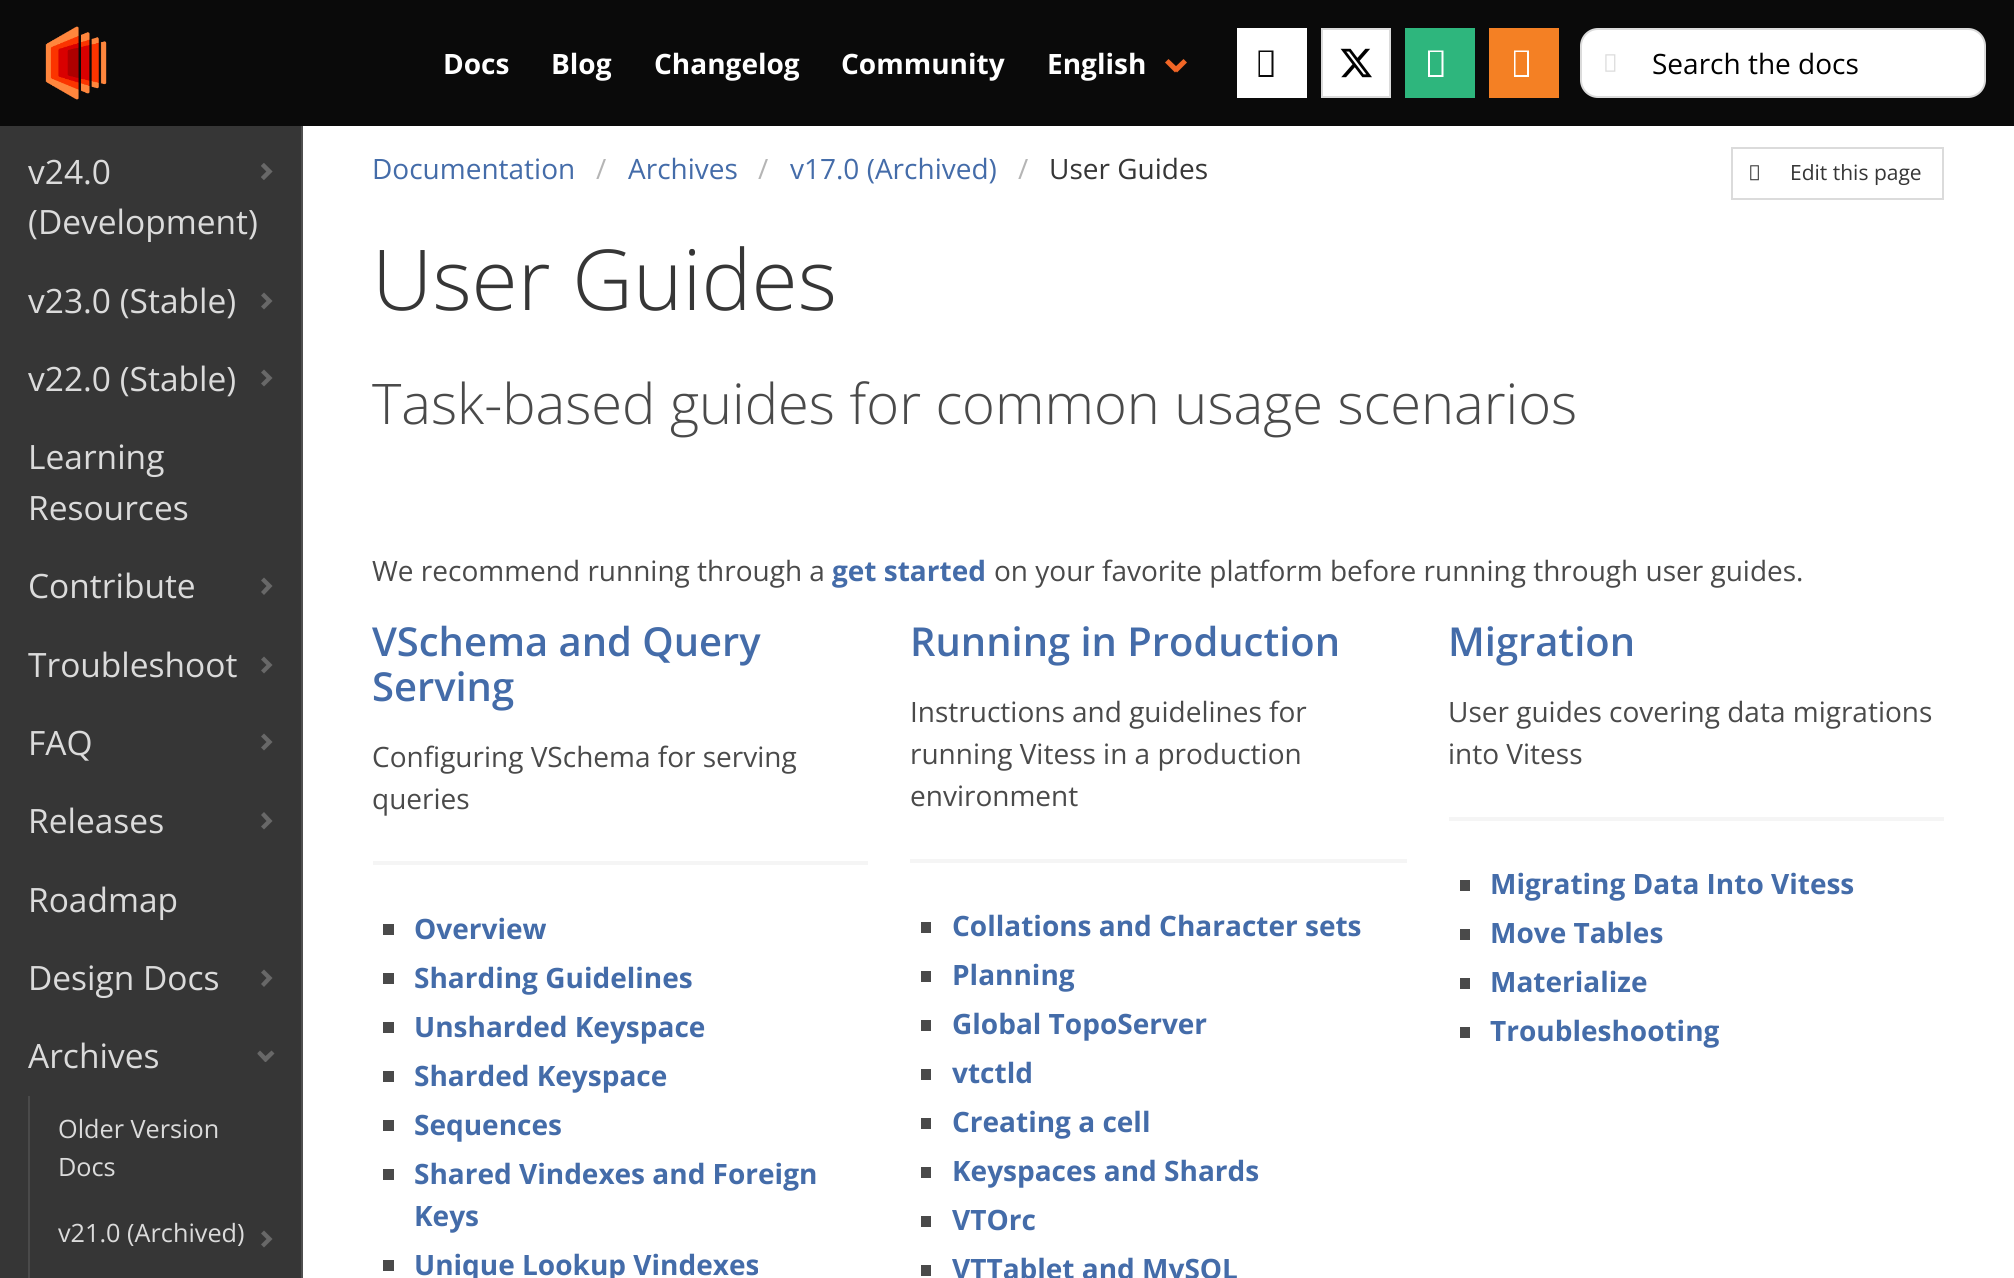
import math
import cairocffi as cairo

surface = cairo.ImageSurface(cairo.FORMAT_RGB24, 2014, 1278)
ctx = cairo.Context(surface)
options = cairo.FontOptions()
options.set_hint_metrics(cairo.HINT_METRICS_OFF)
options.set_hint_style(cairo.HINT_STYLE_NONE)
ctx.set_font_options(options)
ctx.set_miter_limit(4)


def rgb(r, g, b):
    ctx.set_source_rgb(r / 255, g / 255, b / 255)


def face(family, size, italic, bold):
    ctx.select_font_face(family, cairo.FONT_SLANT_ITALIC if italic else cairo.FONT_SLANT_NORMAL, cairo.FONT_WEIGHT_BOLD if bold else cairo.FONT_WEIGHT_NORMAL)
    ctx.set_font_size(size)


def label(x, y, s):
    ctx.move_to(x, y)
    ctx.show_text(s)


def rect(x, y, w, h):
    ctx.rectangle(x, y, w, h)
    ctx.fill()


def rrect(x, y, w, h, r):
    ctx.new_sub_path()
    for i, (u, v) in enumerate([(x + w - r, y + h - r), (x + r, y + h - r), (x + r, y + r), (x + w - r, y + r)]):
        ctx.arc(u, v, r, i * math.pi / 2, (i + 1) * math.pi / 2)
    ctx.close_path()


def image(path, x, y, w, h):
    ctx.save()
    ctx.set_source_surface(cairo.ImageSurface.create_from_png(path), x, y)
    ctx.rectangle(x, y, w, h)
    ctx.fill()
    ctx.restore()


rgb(255, 255, 255)
ctx.paint()
rgb(54, 54, 54)
rect(0, 126, 301, 1152)
rgb(79, 79, 79)
rect(301, 126, 2, 1152)
face('Open Sans', 33.5, 0, 0)
rgb(219, 219, 219)
label(28, 184, 'v24.0')
image('image0.png', 261, 163, 12, 17)
label(28, 234, '(Development)')
label(28, 313, 'v23.0 (Stable)')
rgb(104, 104, 104)
ctx.new_path()
ctx.move_to(272.5, 301)
ctx.line_to(264, 309.5)
ctx.line_to(261, 306.5)
ctx.line_to(266.5, 301)
ctx.line_to(261, 295.5)
ctx.line_to(264, 292.5)
ctx.close_path()
ctx.fill()
rgb(219, 219, 219)
label(28, 391, 'v22.0 (Stable)')
rgb(104, 104, 104)
ctx.new_path()
ctx.move_to(272.5, 378)
ctx.line_to(264, 386.5)
ctx.line_to(261, 383.5)
ctx.line_to(266.5, 378)
ctx.line_to(261, 372.5)
ctx.line_to(264, 369.5)
ctx.close_path()
ctx.fill()
rgb(219, 219, 219)
label(28, 469, 'Learning')
label(28, 520, 'Resources')
label(28, 598, 'Contribute')
rgb(104, 104, 104)
ctx.new_path()
ctx.move_to(272.5, 586)
ctx.line_to(264, 595)
ctx.line_to(261, 592)
ctx.line_to(266.5, 586)
ctx.line_to(261, 580.5)
ctx.line_to(264, 577.5)
ctx.close_path()
ctx.fill()
rgb(219, 219, 219)
label(28, 677, 'Troubleshoot')
rgb(104, 104, 104)
ctx.new_path()
ctx.move_to(272.5, 665)
ctx.line_to(264, 673.5)
ctx.line_to(261, 670.5)
ctx.line_to(266.5, 665)
ctx.line_to(261, 659.5)
ctx.line_to(264, 656.5)
ctx.close_path()
ctx.fill()
rgb(219, 219, 219)
label(28, 755, 'FAQ')
rgb(104, 104, 104)
ctx.new_path()
ctx.move_to(272.5, 742)
ctx.line_to(264, 750.5)
ctx.line_to(261, 747.5)
ctx.line_to(266.5, 742)
ctx.line_to(261, 736.5)
ctx.line_to(264, 733.5)
ctx.close_path()
ctx.fill()
rgb(219, 219, 219)
label(28, 833, 'Releases')
rgb(104, 104, 104)
ctx.new_path()
ctx.move_to(272.5, 821)
ctx.line_to(264, 829.5)
ctx.line_to(261, 826.5)
ctx.line_to(266.5, 821)
ctx.line_to(261, 815)
ctx.line_to(264, 812)
ctx.close_path()
ctx.fill()
rgb(219, 219, 219)
label(28, 912, 'Roadmap')
label(28, 990, 'Design Docs')
rgb(104, 104, 104)
ctx.new_path()
ctx.move_to(272.5, 978)
ctx.line_to(264, 987)
ctx.line_to(261, 984)
ctx.line_to(266.5, 978)
ctx.line_to(261, 972.5)
ctx.line_to(264, 969.5)
ctx.close_path()
ctx.fill()
rgb(219, 219, 219)
label(28, 1068, 'Archives')
rgb(104, 104, 104)
ctx.new_path()
ctx.move_to(257.5, 1053)
ctx.line_to(260, 1050.5)
ctx.line_to(265.5, 1056)
ctx.line_to(271.5, 1050.5)
ctx.line_to(274.5, 1053.5)
ctx.line_to(266, 1062)
ctx.line_to(265, 1062)
ctx.line_to(257.5, 1054)
ctx.close_path()
ctx.fill()
rgb(74, 74, 74)
rect(28, 1096, 2, 182)
face('Open Sans', 25.25, 0, 0)
rgb(219, 219, 219)
label(58, 1138, 'Older Version')
label(58, 1176, 'Docs')
label(58, 1242, 'v21.0 (Archived)')
rgb(104, 104, 104)
ctx.new_path()
ctx.move_to(272.5, 1239)
ctx.line_to(264, 1247.5)
ctx.line_to(261, 1244.5)
ctx.line_to(266.5, 1239)
ctx.line_to(261, 1233.5)
ctx.line_to(264, 1230.5)
ctx.close_path()
ctx.fill()
rgb(10, 10, 10)
rect(0, 0, 2014, 126)
image('image1.png', 45, 26, 62, 74)
face('Open Sans', 28, 0, 1)
rgb(255, 255, 255)
label(443, 74, 'Docs')
label(551, 74, 'Blog')
label(654, 74, 'Changelog')
label(841, 74, 'Community')
label(1047, 74, 'English')
rgb(241, 102, 38)
ctx.new_path()
ctx.move_to(1173.5, 68.5)
ctx.line_to(1183.5, 59)
ctx.line_to(1187, 62.5)
ctx.line_to(1177, 72.5)
ctx.close_path()
ctx.fill()
ctx.new_path()
ctx.move_to(1165, 62.5)
ctx.line_to(1168.5, 59)
ctx.line_to(1178.5, 68.5)
ctx.line_to(1175, 72.5)
ctx.close_path()
ctx.fill()
rgb(255, 255, 255)
rect(1237, 28, 70, 70)
rgb(10, 10, 10)
ctx.new_path()
ctx.move_to(1258.5, 77)
ctx.line_to(1258.5, 50.5)
ctx.line_to(1273.5, 50.5)
ctx.line_to(1273.5, 77)
ctx.close_path()
ctx.move_to(1260, 75)
ctx.line_to(1271.5, 75)
ctx.line_to(1271.5, 52)
ctx.line_to(1260, 52)
ctx.close_path()
ctx.fill()
rgb(255, 255, 255)
ctx.rectangle(1322, 29, 68, 68)
ctx.fill_preserve()
rgb(219, 219, 219)
ctx.stroke()
image('image2.png', 1340, 48, 32, 30)
rgb(46, 182, 125)
rect(1405, 28, 70, 70)
rgb(255, 255, 255)
ctx.new_path()
ctx.move_to(1428, 77)
ctx.line_to(1428, 50.5)
ctx.line_to(1443.5, 50.5)
ctx.line_to(1443.5, 77)
ctx.close_path()
ctx.move_to(1430, 75)
ctx.line_to(1441.5, 75)
ctx.line_to(1441.5, 52)
ctx.line_to(1430, 52)
ctx.close_path()
ctx.fill()
rgb(244, 128, 36)
rect(1489, 28, 70, 70)
rgb(255, 255, 255)
ctx.new_path()
ctx.move_to(1514, 77)
ctx.line_to(1514, 50.5)
ctx.line_to(1529, 50.5)
ctx.line_to(1529, 77)
ctx.close_path()
ctx.move_to(1515.5, 75)
ctx.line_to(1527, 75)
ctx.line_to(1527, 52)
ctx.line_to(1515.5, 52)
ctx.close_path()
ctx.fill()
rrect(1581, 29, 404, 68, 17)
ctx.fill_preserve()
rgb(219, 219, 219)
ctx.stroke()
image('image3.png', 1605, 54, 11, 18)
face('Open Sans', 28, 0, 0)
rgb(0, 0, 0)
label(1652, 74, 'Search the docs')
rgb(68, 108, 169)
label(372, 179, 'Documentation')
rgb(181, 181, 181)
label(596, 179, '/')
rgb(68, 108, 169)
label(628, 179, 'Archives')
rgb(181, 181, 181)
label(758, 179, '/')
rgb(68, 108, 169)
label(790, 179, 'v17.0 (Archived)')
rgb(181, 181, 181)
label(1018, 179, '/')
rgb(54, 54, 54)
label(1049, 179, 'User Guides')
ctx.rectangle(1732, 148, 211, 51)
rgb(219, 219, 219)
ctx.stroke()
image('image4.png', 1750, 165, 9, 16)
face('Open Sans', 21, 0, 0)
rgb(54, 54, 54)
label(1790, 180, 'Edit this page')
face('Open Sans Light', 84, 0, 0)
label(372, 310, 'User Guides')
face('Open Sans Light', 56, 0, 0)
rgb(74, 74, 74)
label(372, 424, 'Task-based guides for common usage scenarios')
face('Open Sans', 28, 0, 0)
label(372, 581, 'We recommend running through a')
face('Open Sans', 28, 0, 1)
rgb(68, 108, 169)
label(832, 581, 'get started')
face('Open Sans', 28, 0, 0)
rgb(74, 74, 74)
label(994, 581, 'on your favorite platform before running through user guides.')
face('Open Sans SemiBold', 39.9, 0, 0)
rgb(68, 108, 169)
label(372, 656, 'VSchema and Query')
label(372, 701, 'Serving')
face('Open Sans', 28, 0, 0)
rgb(74, 74, 74)
label(372, 767, 'Configuring VSchema for serving')
label(372, 809, 'queries')
rgb(245, 245, 245)
rect(373, 861, 495, 4)
rgb(74, 74, 74)
rect(383, 924, 11, 11)
face('Open Sans', 28, 0, 1)
rgb(68, 108, 169)
label(414, 939, 'Overview')
rgb(74, 74, 74)
rect(383, 973, 11, 11)
rgb(68, 108, 169)
label(414, 988, 'Sharding Guidelines')
rgb(74, 74, 74)
rect(383, 1022, 11, 11)
rgb(68, 108, 169)
label(414, 1037, 'Unsharded Keyspace')
rgb(74, 74, 74)
rect(383, 1071, 11, 11)
rgb(68, 108, 169)
label(414, 1086, 'Sharded Keyspace')
rgb(74, 74, 74)
rect(383, 1120, 11, 11)
rgb(68, 108, 169)
label(414, 1135, 'Sequences')
rgb(74, 74, 74)
rect(383, 1169, 11, 11)
rgb(68, 108, 169)
label(414, 1184, 'Shared Vindexes and Foreign')
label(414, 1226, 'Keys')
rgb(74, 74, 74)
rect(383, 1260, 11, 11)
rgb(68, 108, 169)
label(414, 1275, 'Unique Lookup Vindexes')
face('Open Sans SemiBold', 39.9, 0, 0)
label(910, 656, 'Running in Production')
face('Open Sans', 28, 0, 0)
rgb(74, 74, 74)
label(910, 722, 'Instructions and guidelines for')
label(910, 764, 'running Vitess in a production')
label(910, 806, 'environment')
rgb(245, 245, 245)
rect(910, 859, 497, 4)
rgb(74, 74, 74)
rect(921, 922, 10, 11)
face('Open Sans', 28, 0, 1)
rgb(68, 108, 169)
label(952, 936, 'Collations and Character sets')
rgb(74, 74, 74)
rect(921, 971, 10, 11)
rgb(68, 108, 169)
label(952, 985, 'Planning')
rgb(74, 74, 74)
rect(921, 1020, 10, 11)
rgb(68, 108, 169)
label(952, 1034, 'Global TopoServer')
rgb(74, 74, 74)
rect(921, 1069, 10, 11)
rgb(68, 108, 169)
label(952, 1083, 'vtctld')
rgb(74, 74, 74)
rect(921, 1118, 10, 11)
rgb(68, 108, 169)
label(952, 1132, 'Creating a cell')
rgb(74, 74, 74)
rect(921, 1167, 10, 11)
rgb(68, 108, 169)
label(952, 1181, 'Keyspaces and Shards')
rgb(74, 74, 74)
rect(921, 1216, 10, 11)
rgb(68, 108, 169)
label(952, 1230, 'VTOrc')
rgb(74, 74, 74)
rect(921, 1265, 10, 11)
rgb(68, 108, 169)
label(952, 1279, 'VTTablet and MySQL')
face('Open Sans SemiBold', 39.9, 0, 0)
label(1448, 656, 'Migration')
face('Open Sans', 28, 0, 0)
rgb(74, 74, 74)
label(1448, 722, 'User guides covering data migrations')
label(1448, 764, 'into Vitess')
rgb(245, 245, 245)
rect(1449, 817, 495, 4)
rgb(74, 74, 74)
rect(1460, 880, 10, 11)
face('Open Sans', 28, 0, 1)
rgb(68, 108, 169)
label(1490, 894, 'Migrating Data Into Vitess')
rgb(74, 74, 74)
rect(1460, 929, 10, 11)
rgb(68, 108, 169)
label(1490, 943, 'Move Tables')
rgb(74, 74, 74)
rect(1460, 978, 10, 11)
rgb(68, 108, 169)
label(1490, 992, 'Materialize')
rgb(74, 74, 74)
rect(1460, 1027, 10, 11)
rgb(68, 108, 169)
label(1490, 1041, 'Troubleshooting')
surface.write_to_png('render.png')
